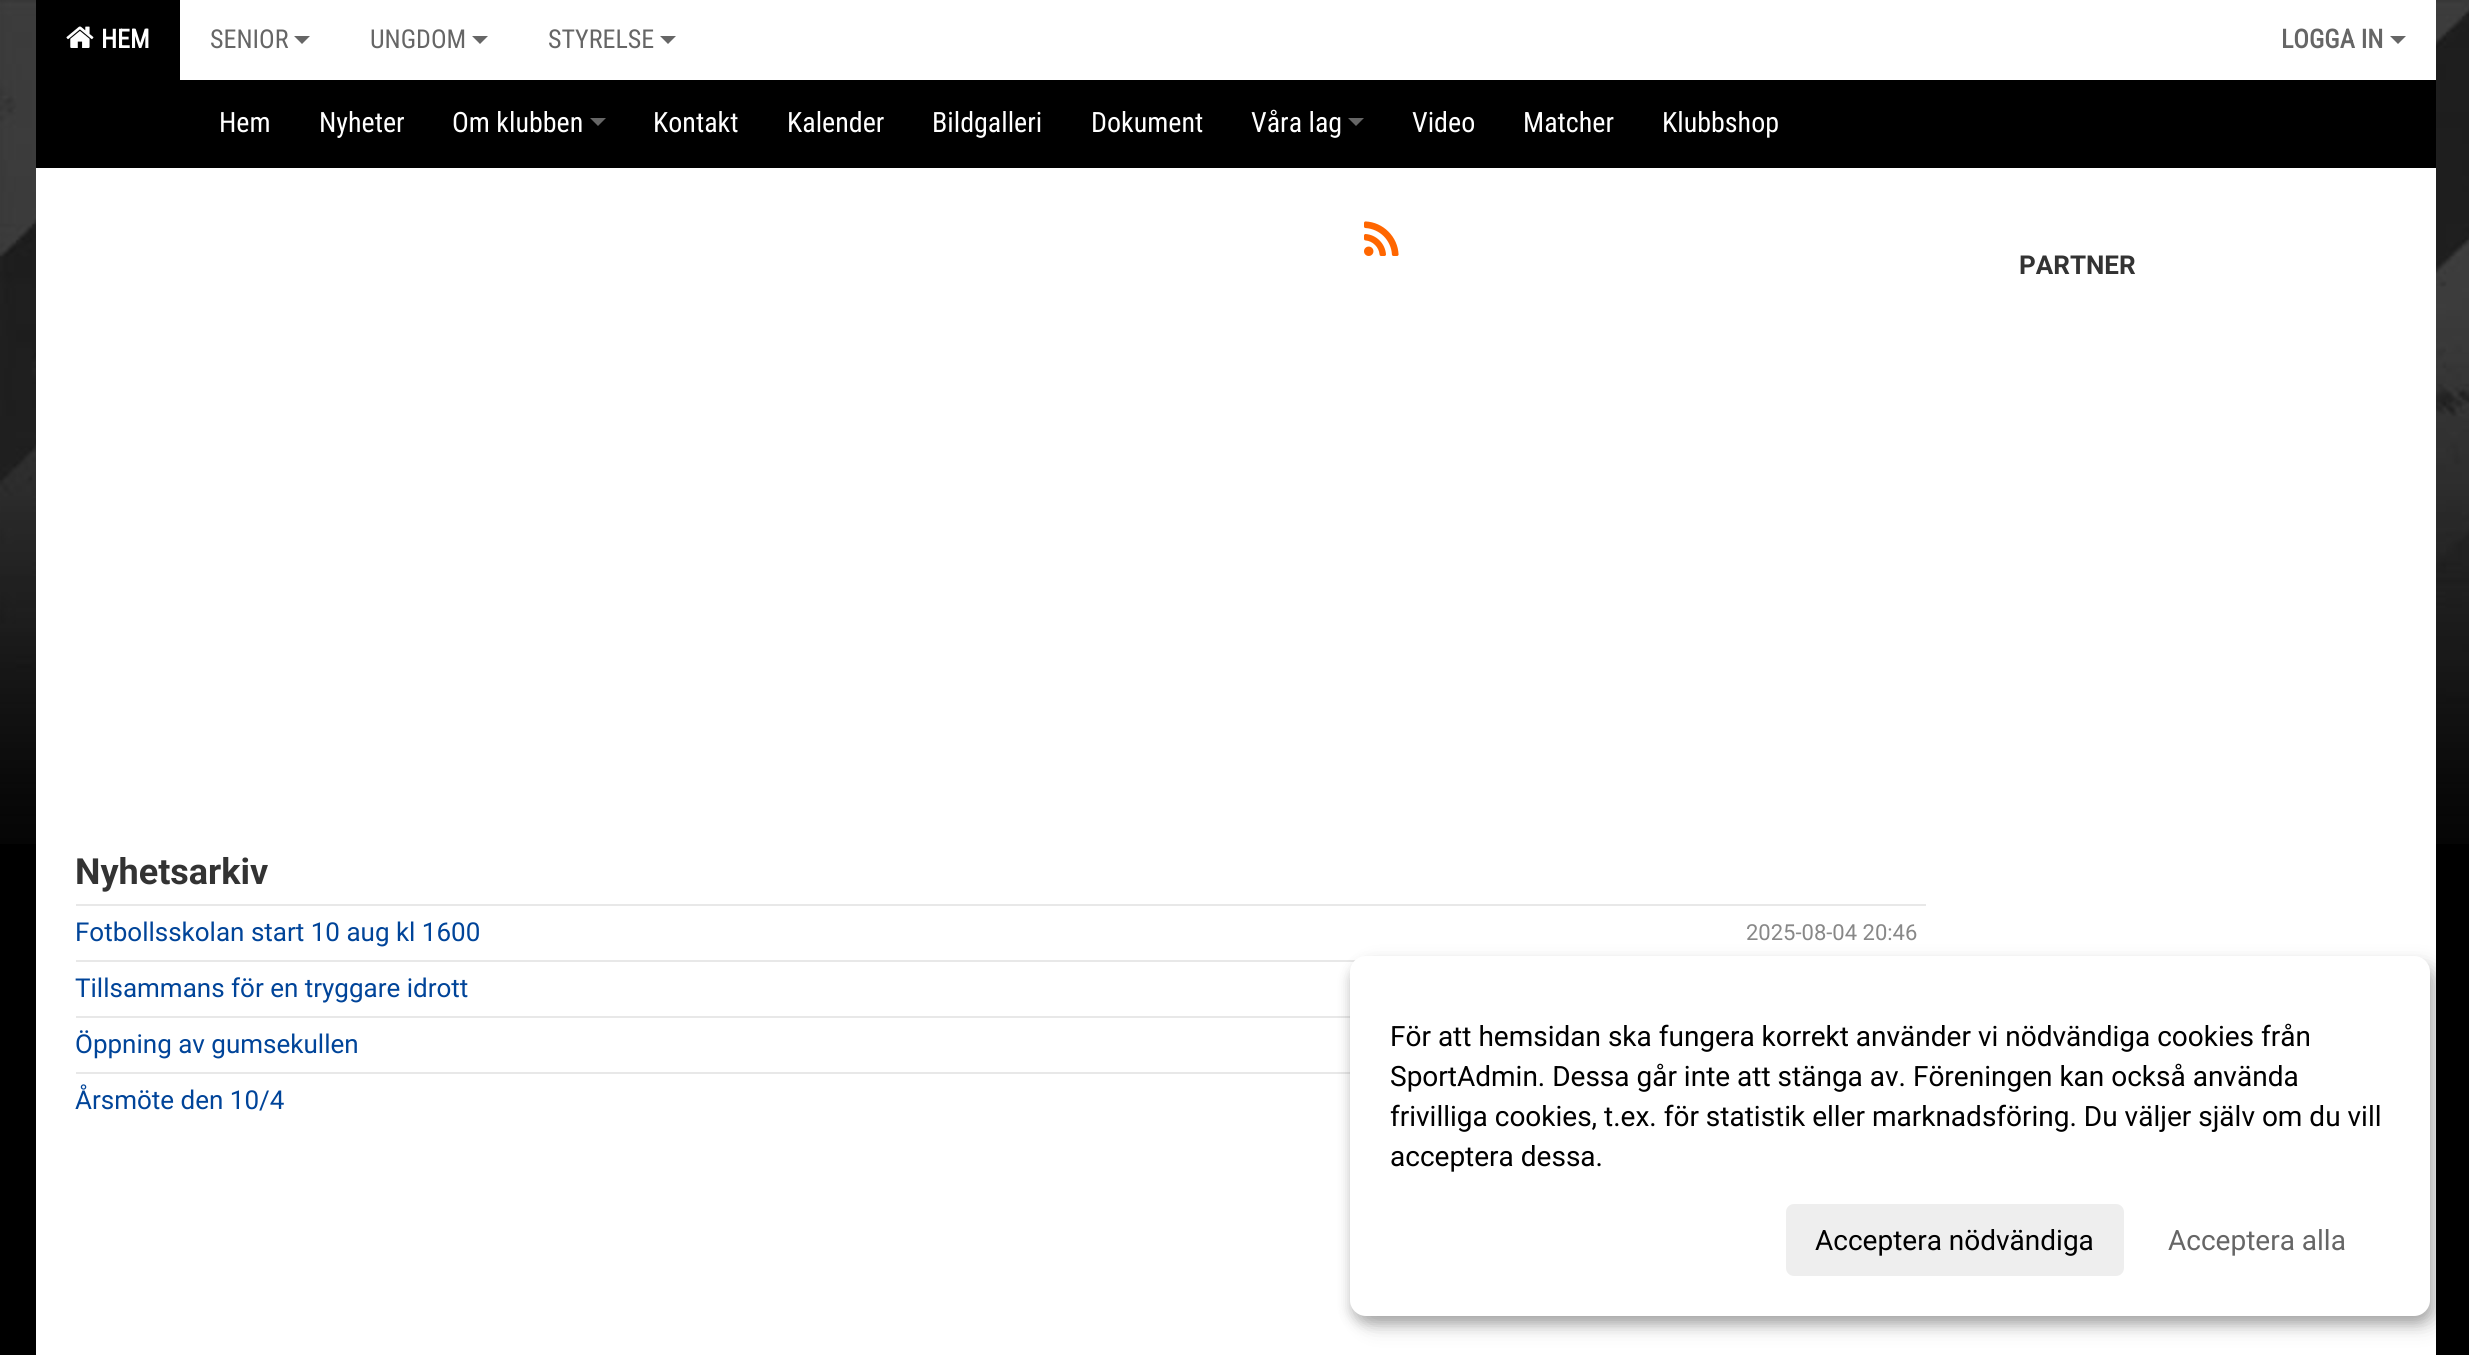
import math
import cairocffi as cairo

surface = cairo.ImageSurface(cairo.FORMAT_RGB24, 2469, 1355)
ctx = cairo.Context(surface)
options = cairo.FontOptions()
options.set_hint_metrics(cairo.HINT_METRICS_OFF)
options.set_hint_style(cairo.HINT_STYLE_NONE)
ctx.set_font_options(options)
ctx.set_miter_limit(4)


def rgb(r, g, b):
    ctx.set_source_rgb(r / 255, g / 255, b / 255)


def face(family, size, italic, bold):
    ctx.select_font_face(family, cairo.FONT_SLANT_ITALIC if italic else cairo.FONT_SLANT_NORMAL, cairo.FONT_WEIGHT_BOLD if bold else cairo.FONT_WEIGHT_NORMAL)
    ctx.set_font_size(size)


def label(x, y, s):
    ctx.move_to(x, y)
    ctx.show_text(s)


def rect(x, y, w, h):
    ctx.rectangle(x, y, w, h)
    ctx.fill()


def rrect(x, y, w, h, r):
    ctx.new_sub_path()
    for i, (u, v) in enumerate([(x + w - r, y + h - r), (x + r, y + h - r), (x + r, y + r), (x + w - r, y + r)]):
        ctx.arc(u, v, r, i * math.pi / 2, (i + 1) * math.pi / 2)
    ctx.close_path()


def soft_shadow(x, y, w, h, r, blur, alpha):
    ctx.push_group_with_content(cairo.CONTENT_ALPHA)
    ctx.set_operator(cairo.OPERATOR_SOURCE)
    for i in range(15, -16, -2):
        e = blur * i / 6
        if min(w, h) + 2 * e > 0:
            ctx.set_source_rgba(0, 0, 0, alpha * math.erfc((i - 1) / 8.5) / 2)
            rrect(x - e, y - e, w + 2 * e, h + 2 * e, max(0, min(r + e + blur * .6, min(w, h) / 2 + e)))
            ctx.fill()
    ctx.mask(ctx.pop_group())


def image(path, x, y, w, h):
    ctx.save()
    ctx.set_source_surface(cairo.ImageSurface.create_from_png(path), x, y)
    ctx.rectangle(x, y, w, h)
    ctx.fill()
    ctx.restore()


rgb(0, 0, 0)
ctx.paint()
image('image0.png', 0, 0, 2469, 844)
rgb(255, 255, 255)
rect(180, 0, 2256, 80)
rgb(0, 0, 0)
rect(36, 0, 144, 80)
image('image1.png', 66, 26, 28, 22)
face('Roboto Condensed', 26, 0, 1)
rgb(255, 255, 255)
label(101, 48, 'HEM')
face('Roboto Condensed', 26, 0, 0)
rgb(102, 102, 102)
label(210, 48, 'SENIOR')
ctx.new_path()
ctx.move_to(294, 36)
ctx.line_to(310, 36)
ctx.line_to(302, 44)
ctx.close_path()
ctx.fill()
label(370, 48, 'UNGDOM')
ctx.new_path()
ctx.move_to(472, 36)
ctx.line_to(488, 36)
ctx.line_to(480, 44)
ctx.close_path()
ctx.fill()
label(548, 48, 'STYRELSE')
ctx.new_path()
ctx.move_to(660, 36)
ctx.line_to(676, 36)
ctx.line_to(668, 44)
ctx.close_path()
ctx.fill()
face('Roboto Condensed', 26, 0, 1)
label(2281, 48, 'LOGGA IN')
ctx.new_path()
ctx.move_to(2390, 36)
ctx.line_to(2406, 36)
ctx.line_to(2398, 44)
ctx.close_path()
ctx.fill()
rgb(255, 255, 255)
rect(36, 168, 2400, 1187)
rgb(0, 0, 0)
rect(36, 80, 2400, 88)
face('Roboto Condensed', 28, 0, 0)
rgb(255, 255, 255)
label(219, 132, 'Hem')
label(319, 132, 'Nyheter')
label(452, 132, 'Om klubben')
rgb(102, 102, 102)
ctx.new_path()
ctx.move_to(590, 118)
ctx.line_to(606, 118)
ctx.line_to(598, 126)
ctx.close_path()
ctx.fill()
rgb(255, 255, 255)
label(653, 132, 'Kontakt')
label(787, 132, 'Kalender')
label(932, 132, 'Bildgalleri')
label(1091, 132, 'Dokument')
label(1251, 132, 'Våra lag')
rgb(102, 102, 102)
ctx.new_path()
ctx.move_to(1348, 118)
ctx.line_to(1364, 118)
ctx.line_to(1356, 126)
ctx.close_path()
ctx.fill()
rgb(255, 255, 255)
label(1412, 132, 'Video')
label(1523, 132, 'Matcher')
label(1662, 132, 'Klubbshop')
face('Roboto', 26, 0, 1)
rgb(51, 51, 51)
label(2019, 274, 'PARTNER')
image('image2.png', 1364, 221, 35, 35)
face('Roboto', 36, 0, 1)
label(75, 884, 'Nyhetsarkiv')
rgb(232, 232, 232)
rect(76, 904, 1850, 2)
face('Roboto', 26, 0, 0)
rgb(0, 68, 153)
label(75, 941, 'Fotbollsskolan start 10 aug kl 1600')
face('Roboto', 22, 0, 0)
rgb(136, 136, 136)
label(1746, 940, '2025-08-04 20:46')
rgb(232, 232, 232)
rect(76, 960, 1280, 2)
face('Roboto', 26, 0, 0)
rgb(0, 68, 153)
label(75, 997, 'Tillsammans för en tryggare idrott')
rgb(232, 232, 232)
rect(76, 1016, 1274, 2)
rgb(0, 68, 153)
label(75, 1053, 'Öppning av gumsekullen')
rgb(232, 232, 232)
rect(76, 1072, 1274, 2)
rgb(0, 68, 153)
label(75, 1109, 'Årsmöte den 10/4')
rgb(0, 0, 0)
soft_shadow(1360, 966, 1080, 360, 16, 10, 0.19)
soft_shadow(1350, 964, 1080, 360, 16, 6, 0.2)
rgb(255, 255, 255)
rrect(1350, 956, 1080, 360, 16)
ctx.fill()
face('Roboto', 28, 0, 0)
rgb(0, 0, 0)
label(1390, 1046, 'För att hemsidan ska fungera korrekt använder vi nödvändiga cookies från')
label(1390, 1086, 'SportAdmin. Dessa går inte att stänga av. Föreningen kan också använda')
label(1390, 1126, 'frivilliga cookies, t.ex. för statistik eller marknadsföring. Du väljer själv om du vill')
label(1390, 1166, 'acceptera dessa.')
rgb(238, 238, 238)
rrect(1786, 1204, 338, 72, 8)
ctx.fill()
rgb(0, 0, 0)
label(1815, 1250, 'Acceptera nödvändiga')
rgb(102, 102, 102)
label(2168, 1250, 'Acceptera alla')
surface.write_to_png('render.png')
